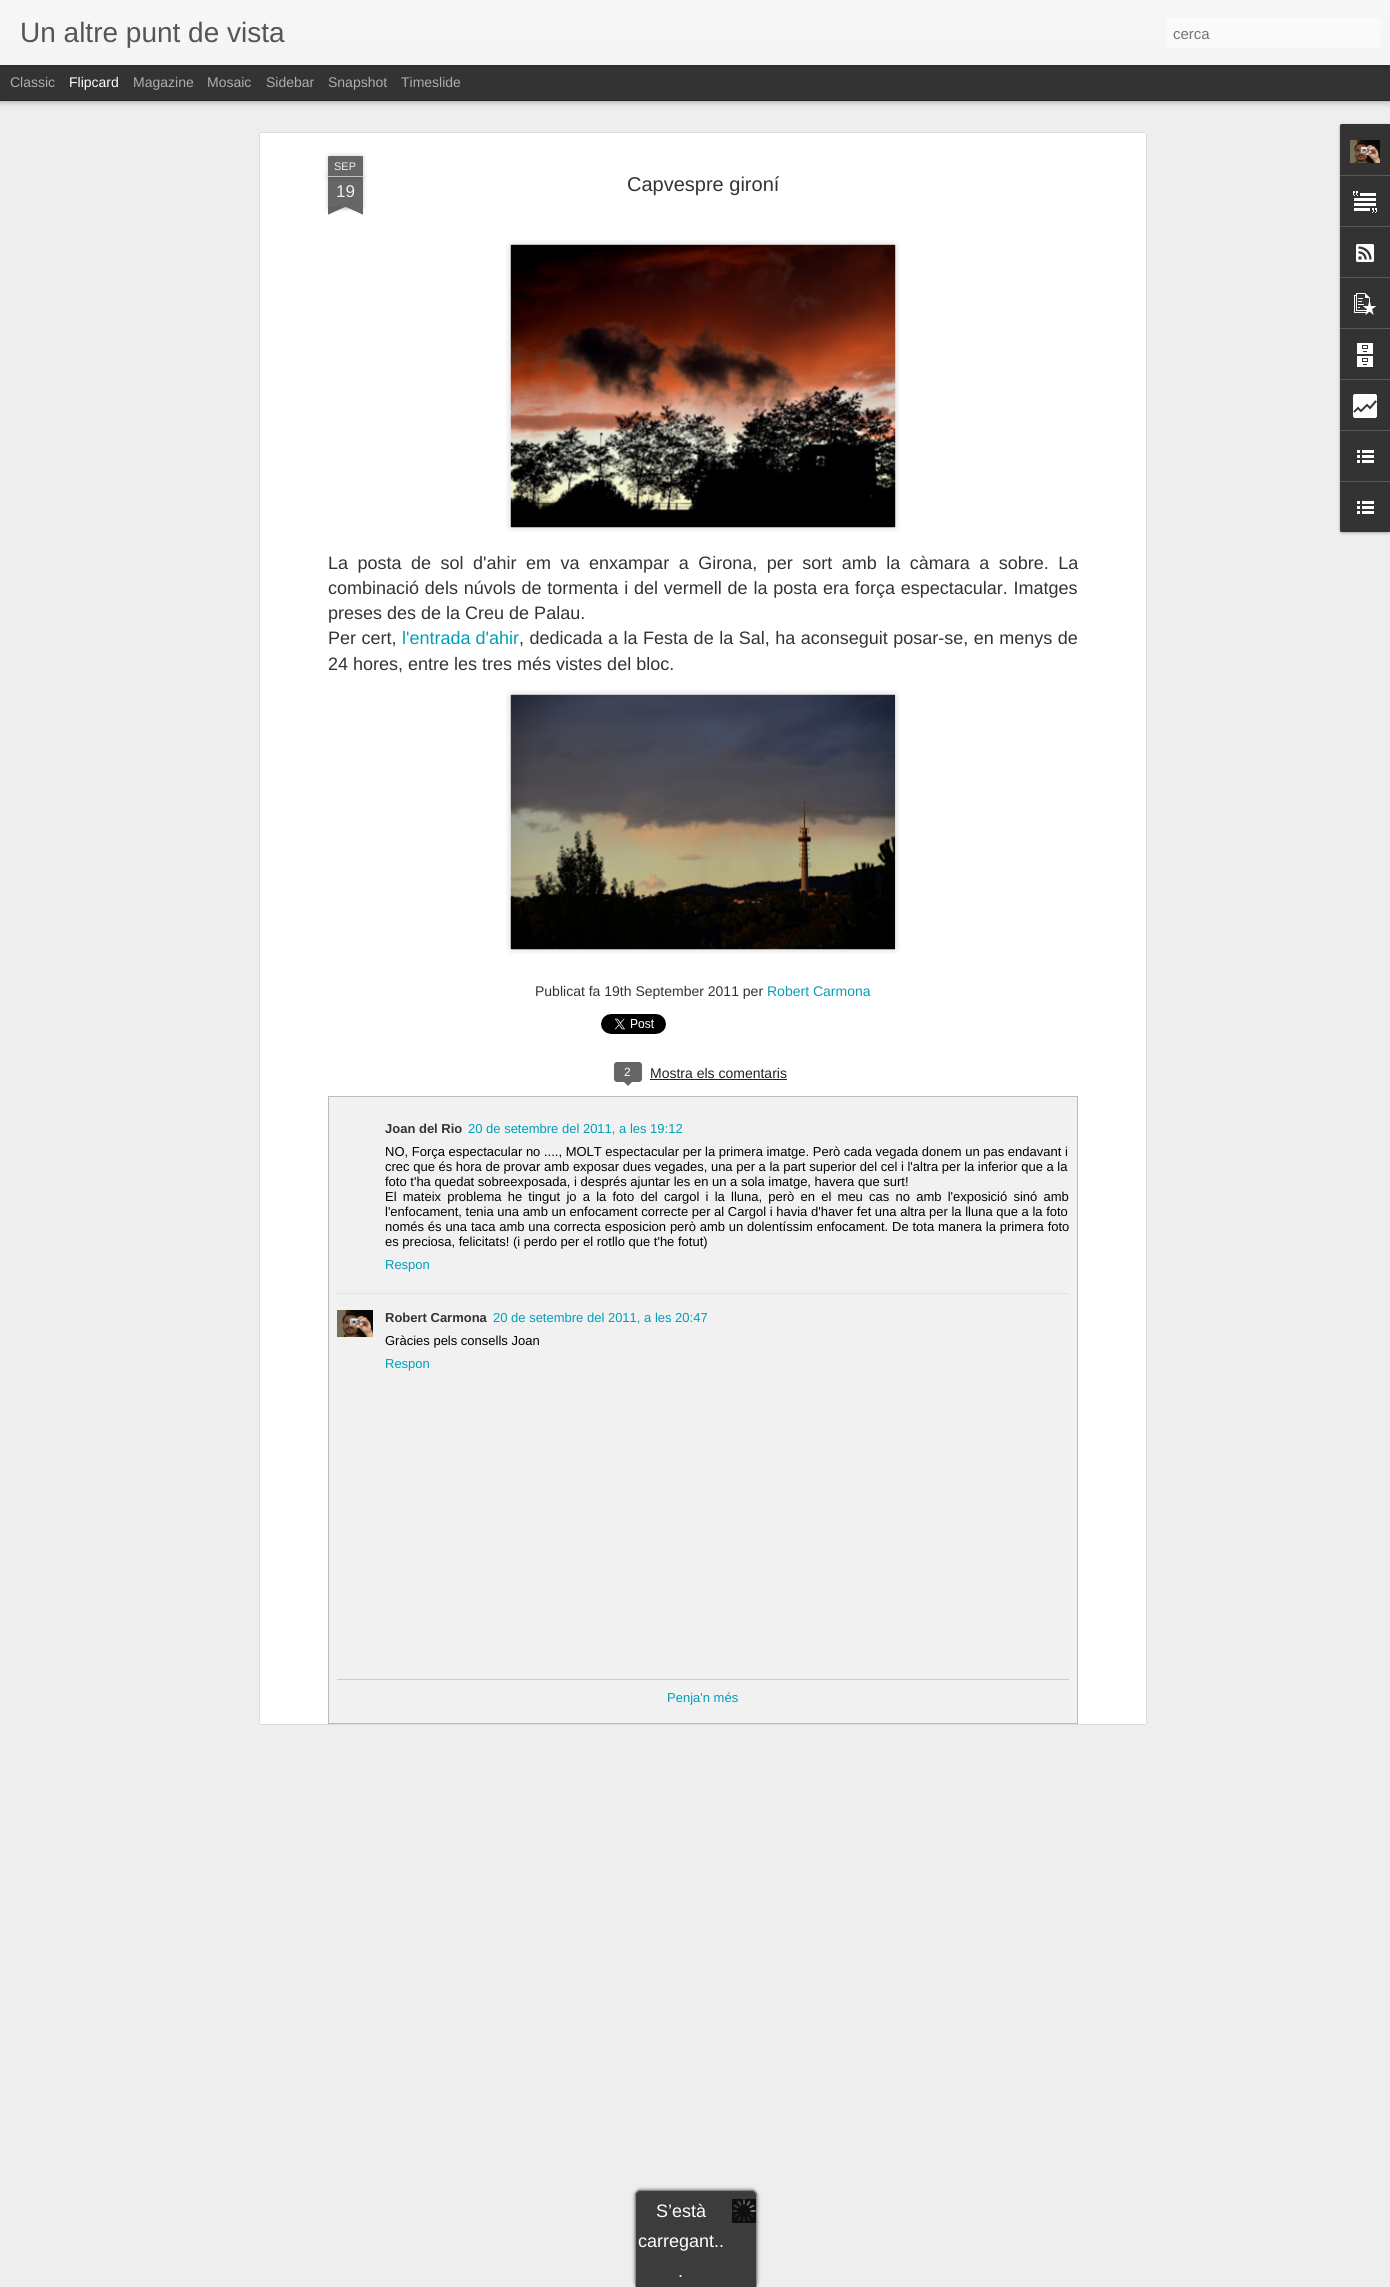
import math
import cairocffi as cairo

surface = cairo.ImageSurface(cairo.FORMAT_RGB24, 1390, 2287)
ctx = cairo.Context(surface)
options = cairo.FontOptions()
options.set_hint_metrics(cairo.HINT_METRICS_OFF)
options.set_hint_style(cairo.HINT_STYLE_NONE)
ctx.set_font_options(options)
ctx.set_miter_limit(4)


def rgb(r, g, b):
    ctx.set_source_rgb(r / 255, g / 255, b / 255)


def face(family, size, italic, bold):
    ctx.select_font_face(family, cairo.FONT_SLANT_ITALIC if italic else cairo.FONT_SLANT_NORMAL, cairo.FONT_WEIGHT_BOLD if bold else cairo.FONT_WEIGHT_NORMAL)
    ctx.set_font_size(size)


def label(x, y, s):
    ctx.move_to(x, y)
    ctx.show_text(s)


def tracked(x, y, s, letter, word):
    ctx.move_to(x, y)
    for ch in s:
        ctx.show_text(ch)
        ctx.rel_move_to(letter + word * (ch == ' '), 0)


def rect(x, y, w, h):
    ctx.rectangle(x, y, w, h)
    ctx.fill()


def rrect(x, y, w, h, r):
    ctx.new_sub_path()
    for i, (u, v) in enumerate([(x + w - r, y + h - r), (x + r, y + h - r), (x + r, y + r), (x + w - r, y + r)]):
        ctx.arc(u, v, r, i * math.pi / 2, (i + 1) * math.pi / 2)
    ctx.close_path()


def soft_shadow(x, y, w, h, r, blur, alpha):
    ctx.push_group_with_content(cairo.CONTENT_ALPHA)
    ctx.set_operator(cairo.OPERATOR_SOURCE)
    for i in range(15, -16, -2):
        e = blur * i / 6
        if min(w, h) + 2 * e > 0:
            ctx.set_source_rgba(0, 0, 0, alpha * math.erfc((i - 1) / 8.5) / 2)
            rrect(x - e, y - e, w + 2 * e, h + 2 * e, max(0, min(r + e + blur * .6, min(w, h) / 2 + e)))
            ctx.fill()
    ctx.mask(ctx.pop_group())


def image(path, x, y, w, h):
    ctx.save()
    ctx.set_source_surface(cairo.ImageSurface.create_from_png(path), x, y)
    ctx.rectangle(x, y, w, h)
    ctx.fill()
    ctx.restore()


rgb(51, 51, 51)
ctx.paint()
rgb(238, 238, 238)
rect(0, 101, 1390, 2186)
rgb(0, 0, 0)
soft_shadow(0, 65, 1390, 35, 0, 4, 0.5)
rgb(51, 51, 51)
rect(0, 65, 1390, 35)
rgb(0, 0, 0)
soft_shadow(0, 0, 1390, 65, 0, 2.5, 0.3)
gradient = cairo.LinearGradient(0, 0, 0, 65)
gradient.add_color_stop_rgba(0, 0.969, 0.969, 0.969, 1)
gradient.add_color_stop_rgba(1, 0.957, 0.957, 0.957, 1)
ctx.set_source(gradient)
rect(0, 0, 1390, 65)
face('Liberation Sans', 28, 0, 0)
rgb(85, 85, 85)
label(20, 42, 'Un altre punt de vista')
rgb(250, 250, 250)
rrect(1166, 18, 214, 30, 3)
ctx.fill()
face('Liberation Sans', 15, 0, 0)
rgb(117, 117, 117)
label(1173, 39, 'cerca')
face('Liberation Sans', 14, 0, 0)
rgb(173, 173, 173)
label(10, 87, 'Classic')
rgb(255, 255, 255)
label(69, 87, 'Flipcard')
rgb(173, 173, 173)
label(133, 87, 'Magazine')
label(207, 87, 'Mosaic')
label(266, 87, 'Sidebar')
label(328, 87, 'Snapshot')
label(401, 87, 'Timeslide')
rgb(255, 255, 255)
rect(258, 131, 890, 1595)
image('image0.png', 258, 131, 890, 1595)
rgb(0, 0, 0)
soft_shadow(328, 177, 35, 30, 0, 2.5, 0.2)
rgb(102, 102, 102)
rect(328, 177, 35, 30)
rgb(0, 0, 0)
soft_shadow(328, 156, 35, 21, 1, 2.5, 0.2)
rgb(102, 102, 102)
ctx.new_path()
ctx.move_to(329, 156)
ctx.line_to(362, 156)
ctx.curve_to(362.5, 156, 363, 156.5, 363, 157)
ctx.line_to(363, 177)
ctx.line_to(328, 177)
ctx.line_to(328, 157)
ctx.curve_to(328, 156.5, 328.5, 156, 329, 156)
ctx.close_path()
ctx.fill()
rgb(194, 194, 194)
rect(328, 176, 35, 1)
face('Liberation Sans', 11, 0, 0)
rgb(238, 238, 238)
label(334, 170, 'SEP')
face('Liberation Sans', 17, 0, 0)
label(336, 197, '19')
ctx.save()
ctx.rectangle(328, 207, 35, 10)
ctx.clip()
rgb(0, 0, 0)
soft_shadow(319, 197, 50, 10, 0, 2.5, 0.2)
ctx.restore()
ctx.save()
ctx.rectangle(328, 207, 35, 10)
ctx.clip()
rgb(102, 102, 102)
ctx.new_path()
ctx.move_to(319, 208)
ctx.line_to(365, 187)
ctx.line_to(369, 196)
ctx.line_to(323, 217)
ctx.close_path()
ctx.fill()
ctx.restore()
ctx.save()
ctx.rectangle(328, 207, 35, 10)
ctx.clip()
rgb(0, 0, 0)
soft_shadow(322, 197, 50, 10, 0, 2.5, 0.2)
ctx.restore()
ctx.save()
ctx.rectangle(328, 207, 35, 10)
ctx.clip()
rgb(102, 102, 102)
ctx.new_path()
ctx.move_to(326, 187)
ctx.line_to(372, 208)
ctx.line_to(368, 217)
ctx.line_to(322, 196)
ctx.close_path()
ctx.fill()
ctx.restore()
face('Liberation Sans', 20, 0, 0)
rgb(51, 51, 51)
label(627, 191, 'Capvespre gironí')
image('image1.png', 506, 240, 394, 292)
image('image2.png', 510, 244, 386, 284)
face('Liberation Sans', 18, 0, 0)
tracked(328, 569, 'La posta de sol d\'ahir em va enxampar a Girona, per sort amb la càmara a sobre. La', 0, 4.5)
tracked(328, 594, 'combinació dels núvols de tormenta i del vermell de la posta era força espectacular. Imatges', 0, 0.8)
label(328, 619, 'preses des de la Creu de Palau.')
tracked(328, 644, 'Per cert,', 0, 0.5)
rgb(0, 158, 184)
label(402, 644, 'l\'entrada d\'ahir')
rgb(51, 51, 51)
tracked(519, 644, ', dedicada a la Festa de la Sal, ha aconseguit posar-se, en menys de', 0, 0.5)
label(328, 670, '24 hores, entre les tres més vistes del bloc.')
image('image3.png', 506, 690, 394, 264)
image('image4.png', 510, 694, 386, 256)
face('Liberation Sans', 14, 0, 0)
label(535, 996, 'Publicat fa 19th September 2011 per')
rgb(0, 158, 184)
label(767, 996, 'Robert Carmona')
image('image5.png', 601, 1014, 65, 20)
rgb(102, 102, 102)
rrect(614.5, 1062.5, 27, 19, 2.5)
ctx.fill_preserve()
ctx.set_line_width(1)
ctx.stroke()
face('Liberation Sans', 12, 0, 0)
rgb(255, 255, 255)
label(624, 1076, '2')
rgb(102, 102, 102)
ctx.new_path()
ctx.move_to(623, 1081)
ctx.line_to(633, 1081)
ctx.line_to(628, 1086)
ctx.close_path()
ctx.fill()
face('Liberation Sans', 14, 0, 0)
rgb(34, 34, 34)
label(650, 1078, 'Mostra els comentaris')
rect(650, 1079, 137, 1)
rgb(241, 241, 241)
ctx.rectangle(328.5, 1096.5, 749, 627)
ctx.fill_preserve()
rgb(187, 187, 187)
ctx.stroke()
rgb(227, 227, 227)
rect(337, 1293, 732, 1)
face('Liberation Sans', 13, 0, 1)
rgb(51, 51, 51)
label(385, 1133, 'Joan del Rio')
face('Liberation Sans', 13, 0, 0)
rgb(0, 158, 184)
label(468, 1133, '20 de setembre del 2011, a les 19:12')
rgb(0, 0, 0)
label(385, 1156, 'NO, Força espectacular no ...., MOLT espectacular per la primera imatge. Però cada vegada donem un pas endavant i')
label(385, 1171, 'crec que és hora de provar amb exposar dues vegades, una per a la part superior del cel i l\'altra per la inferior que a la')
label(385, 1186, 'foto t\'ha quedat sobreexposada, i després ajuntar les en un a sola imatge, havera que surt!')
tracked(385, 1201, 'El mateix problema he tingut jo a la foto del cargol i la lluna, però en el meu cas no amb l\'exposició sinó amb', 0, 2.6)
label(385, 1216, 'l\'enfocament, tenia una amb un enfocament correcte per al Cargol i havia d\'haver fet una altra per la lluna que a la foto')
tracked(385, 1231, 'només és una taca amb una correcta esposicion però amb un dolentíssim enfocament. De tota manera la primera foto', 0, 0.2)
label(385, 1246, 'es preciosa, felicitats! (i perdo per el rotllo que t\'he fotut)')
rgb(0, 158, 184)
label(385, 1269, 'Respon')
image('image6.png', 337, 1310, 36, 27)
face('Liberation Sans', 13, 0, 1)
rgb(51, 51, 51)
label(385, 1322, 'Robert Carmona')
face('Liberation Sans', 13, 0, 0)
rgb(0, 158, 184)
label(493, 1322, '20 de setembre del 2011, a les 20:47')
rgb(0, 0, 0)
label(385, 1345, 'Gràcies pels consells Joan')
rgb(0, 158, 184)
label(385, 1368, 'Respon')
rgb(204, 204, 204)
rect(337, 1679, 732, 1)
rgb(0, 158, 184)
label(667, 1702, 'Penja\'n més')
rgb(0, 0, 0)
soft_shadow(1340, 125, 50, 408, 2, 1.5, 0.3)
rgb(51, 51, 51)
ctx.new_path()
ctx.move_to(1342, 124)
ctx.line_to(1390, 124)
ctx.line_to(1390, 532)
ctx.line_to(1342, 532)
ctx.curve_to(1341, 532, 1340, 531, 1340, 530)
ctx.line_to(1340, 126)
ctx.curve_to(1340, 125, 1341, 124, 1342, 124)
ctx.close_path()
ctx.fill()
ctx.new_path()
ctx.move_to(1342, 124)
ctx.line_to(1390, 124)
ctx.line_to(1390, 175)
ctx.line_to(1340, 175)
ctx.line_to(1340, 126)
ctx.curve_to(1340, 125, 1341, 124, 1342, 124)
ctx.close_path()
ctx.fill()
image('image7.png', 1350, 140, 30, 23)
rgb(88, 88, 88)
rect(1340, 175, 50, 1)
image('image8.png', 1353, 191, 24, 22)
rect(1340, 226, 50, 1)
image('image9.png', 1356, 244, 18, 18)
rect(1340, 277, 50, 1)
image('image10.png', 1354, 293, 22, 22)
rect(1340, 328, 50, 1)
image('image11.png', 1357, 343, 16, 24)
rect(1340, 379, 50, 1)
image('image12.png', 1353, 394, 24, 24)
rect(1340, 430, 50, 1)
image('image13.png', 1357, 450, 17, 13)
rgb(51, 51, 51)
ctx.new_path()
ctx.move_to(1340, 481)
ctx.line_to(1390, 481)
ctx.line_to(1390, 532)
ctx.line_to(1342, 532)
ctx.curve_to(1341, 532, 1340, 531, 1340, 530)
ctx.close_path()
ctx.fill()
rgb(88, 88, 88)
rect(1340, 481, 50, 1)
image('image13.png', 1357, 501, 17, 13)
rgb(98, 98, 98)
soft_shadow(635, 2190, 122, 97, 6, 2, 1)
rgb(60, 60, 60)
ctx.new_path()
ctx.move_to(641, 2190)
ctx.line_to(751, 2190)
ctx.curve_to(754.5, 2190, 757, 2192.5, 757, 2196)
ctx.line_to(757, 2287)
ctx.line_to(635, 2287)
ctx.line_to(635, 2196)
ctx.curve_to(635, 2192.5, 637.5, 2190, 641, 2190)
ctx.close_path()
ctx.fill()
rgb(136, 136, 136)
ctx.set_fill_rule(cairo.FILL_RULE_EVEN_ODD)
ctx.new_path()
ctx.move_to(641, 2190)
ctx.line_to(751, 2190)
ctx.curve_to(754, 2190, 757, 2193, 757, 2196)
ctx.line_to(757, 2287)
ctx.line_to(635, 2287)
ctx.line_to(635, 2196)
ctx.curve_to(635, 2193, 638, 2190, 641, 2190)
ctx.close_path()
ctx.move_to(641, 2191)
ctx.line_to(751, 2191)
ctx.curve_to(754, 2191, 756, 2193, 756, 2196)
ctx.line_to(756, 2287)
ctx.line_to(636, 2287)
ctx.line_to(636, 2196)
ctx.curve_to(636, 2193, 638, 2191, 641, 2191)
ctx.close_path()
ctx.fill()
image('image14.png', 732, 2199, 24, 24)
face('Liberation Sans', 18, 0, 0)
rgb(255, 255, 255)
label(656, 2217, 'S’està')
label(638, 2247, 'carregant..')
label(678, 2277, '.')
surface.write_to_png('render.png')
